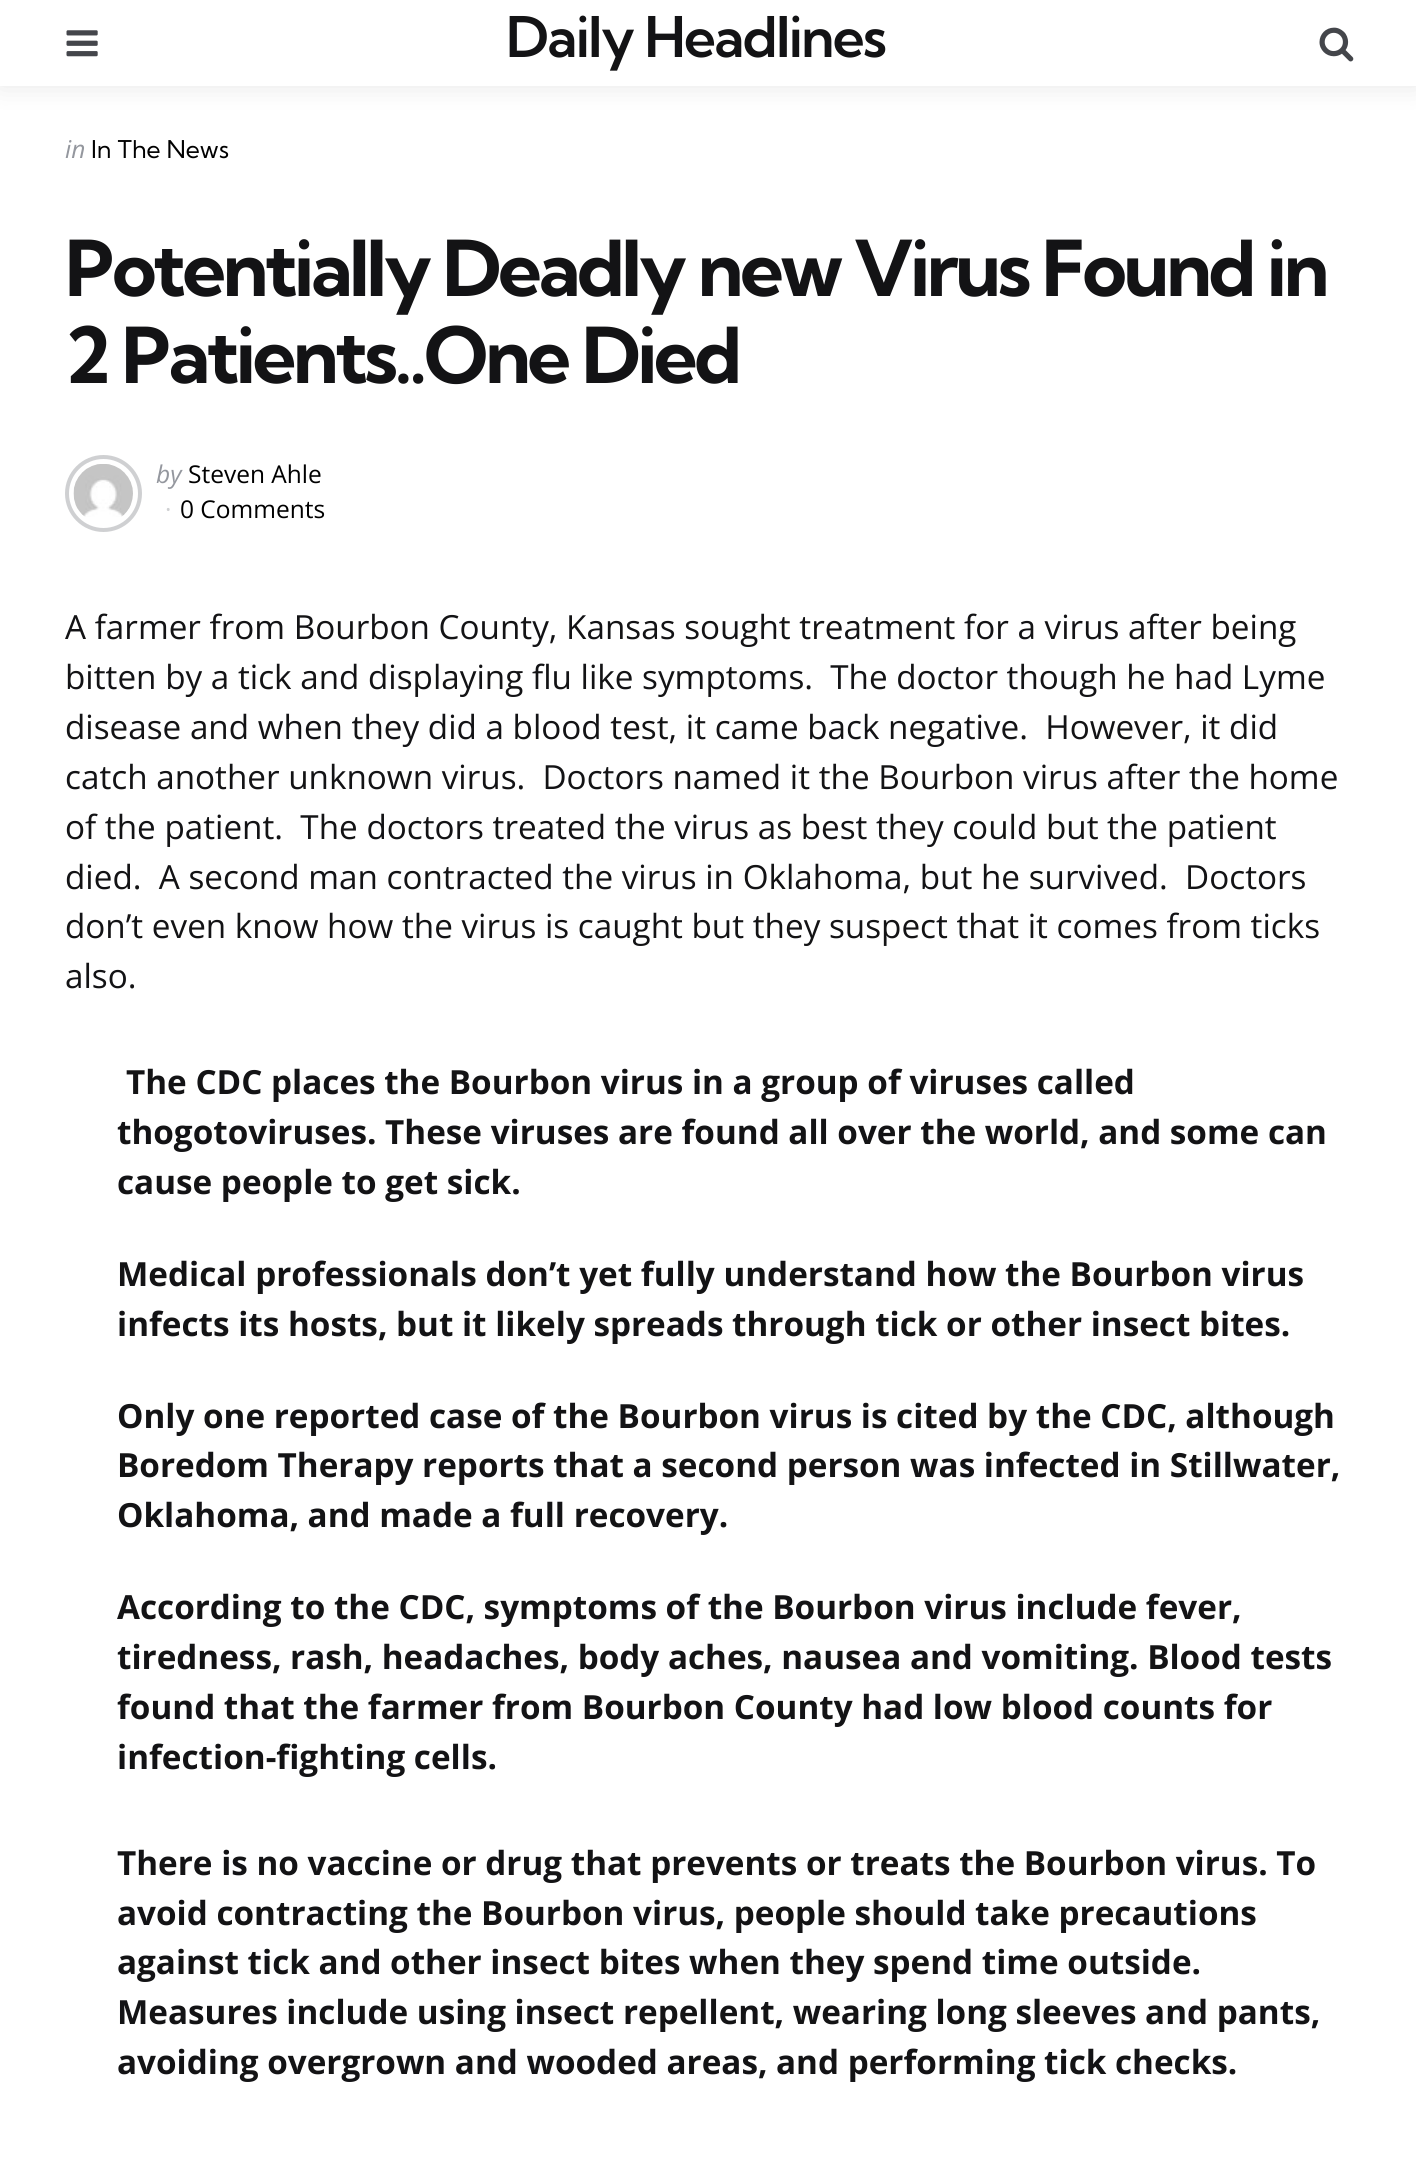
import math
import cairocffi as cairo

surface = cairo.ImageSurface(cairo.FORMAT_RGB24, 1416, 2172)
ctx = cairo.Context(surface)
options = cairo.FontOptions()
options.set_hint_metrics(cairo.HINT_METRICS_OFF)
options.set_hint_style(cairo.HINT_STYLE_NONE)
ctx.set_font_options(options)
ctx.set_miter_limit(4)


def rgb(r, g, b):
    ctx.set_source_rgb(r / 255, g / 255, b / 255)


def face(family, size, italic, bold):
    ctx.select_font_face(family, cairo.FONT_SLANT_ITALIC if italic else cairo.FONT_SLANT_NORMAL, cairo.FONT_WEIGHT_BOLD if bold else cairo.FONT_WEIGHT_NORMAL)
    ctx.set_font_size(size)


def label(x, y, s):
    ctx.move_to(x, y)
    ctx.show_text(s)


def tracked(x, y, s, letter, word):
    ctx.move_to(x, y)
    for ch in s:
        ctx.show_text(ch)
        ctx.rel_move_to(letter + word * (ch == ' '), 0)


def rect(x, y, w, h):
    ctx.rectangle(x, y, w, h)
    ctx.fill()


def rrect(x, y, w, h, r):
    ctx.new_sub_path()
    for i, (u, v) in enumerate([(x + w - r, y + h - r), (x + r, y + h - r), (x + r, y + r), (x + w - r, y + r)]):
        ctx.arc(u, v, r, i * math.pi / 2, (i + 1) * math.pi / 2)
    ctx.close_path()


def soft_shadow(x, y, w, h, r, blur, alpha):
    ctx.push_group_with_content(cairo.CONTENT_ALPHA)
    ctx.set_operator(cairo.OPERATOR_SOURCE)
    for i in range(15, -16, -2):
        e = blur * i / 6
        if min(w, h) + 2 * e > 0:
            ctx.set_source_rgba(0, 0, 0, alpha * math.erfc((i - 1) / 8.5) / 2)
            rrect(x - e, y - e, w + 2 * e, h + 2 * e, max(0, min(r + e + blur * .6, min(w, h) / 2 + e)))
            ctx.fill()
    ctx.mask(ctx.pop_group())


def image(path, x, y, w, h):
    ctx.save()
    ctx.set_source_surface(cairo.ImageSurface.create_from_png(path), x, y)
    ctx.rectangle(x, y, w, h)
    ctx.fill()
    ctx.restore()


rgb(255, 255, 255)
ctx.paint()
rgb(0, 0, 0)
soft_shadow(0, 0, 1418, 86, 0, 13, 0.1)
rgb(255, 255, 255)
rect(0, 0, 1416, 86)
image('image0.png', 66, 30, 32, 27)
face('Kumbh Sans SemiBold', 56, 0, 0)
rgb(19, 19, 21)
tracked(506, 57, 'Daily Headlines', -1.75, 0)
image('image1.png', 1319, 27, 35, 35)
face('Open Sans', 24.5, 1, 0)
rgb(148, 151, 158)
label(65, 158, 'in')
face('Kumbh Sans', 24.5, 0, 0)
rgb(0, 0, 0)
label(91, 158, 'In The News')
face('Kumbh Sans', 77, 0, 1)
rgb(19, 19, 21)
tracked(65, 296, 'Potentially Deadly new Virus Found in', -3.5, 0)
tracked(65, 383, '2 Patients..One Died', -3.5, 0)
ctx.new_path()
ctx.arc(103.5, 493.5, 36.5, 0, 2 * math.pi)
rgb(207, 208, 210)
ctx.set_line_width(4)
ctx.stroke()
image('image2.png', 73, 464, 60, 53)
face('Open Sans', 24.5, 1, 0)
rgb(148, 151, 158)
label(156, 483, 'by')
face('Open Sans', 24.5, 0, 0)
rgb(0, 0, 0)
label(188, 483, 'Steven Ahle')
rgb(207, 208, 210)
label(165, 518, '·')
rgb(0, 0, 0)
label(180, 518, '0 Comments')
face('Open Sans', 33.25, 0, 0)
rgb(19, 19, 21)
label(65, 639, 'A farmer from Bourbon County, Kansas sought treatment for a virus after being')
label(65, 689, 'bitten by a tick and displaying flu like symptoms.  The doctor though he had Lyme')
label(65, 739, 'disease and when they did a blood test, it came back negative.  However, it did')
label(65, 789, 'catch another unknown virus.  Doctors named it the Bourbon virus after the home')
label(65, 839, 'of the patient.  The doctors treated the virus as best they could but the patient')
label(65, 889, 'died.  A second man contracted the virus in Oklahoma, but he survived.  Doctors')
label(65, 938, 'don’t even know how the virus is caught but they suspect that it comes from ticks')
label(65, 988, 'also.')
face('Open Sans', 33.25, 0, 1)
label(126, 1094, 'The CDC places the Bourbon virus in a group of viruses called')
label(117, 1144, 'thogotoviruses. These viruses are found all over the world, and some can')
label(117, 1194, 'cause people to get sick.')
label(117, 1286, 'Medical professionals don’t yet fully understand how the Bourbon virus')
label(117, 1336, 'infects its hosts, but it likely spreads through tick or other insect bites.')
label(117, 1428, 'Only one reported case of the Bourbon virus is cited by the CDC, although')
label(117, 1477, 'Boredom Therapy reports that a second person was infected in Stillwater,')
label(117, 1527, 'Oklahoma, and made a full recovery.')
label(117, 1619, 'According to the CDC, symptoms of the Bourbon virus include fever,')
label(117, 1669, 'tiredness, rash, headaches, body aches, nausea and vomiting. Blood tests')
label(117, 1719, 'found that the farmer from Bourbon County had low blood counts for')
label(117, 1769, 'infection-fighting cells.')
label(117, 1875, 'There is no vaccine or drug that prevents or treats the Bourbon virus. To')
label(117, 1925, 'avoid contracting the Bourbon virus, people should take precautions')
label(117, 1974, 'against tick and other insect bites when they spend time outside.')
label(117, 2024, 'Measures include using insect repellent, wearing long sleeves and pants,')
label(117, 2074, 'avoiding overgrown and wooded areas, and performing tick checks.')
surface.write_to_png('render.png')
